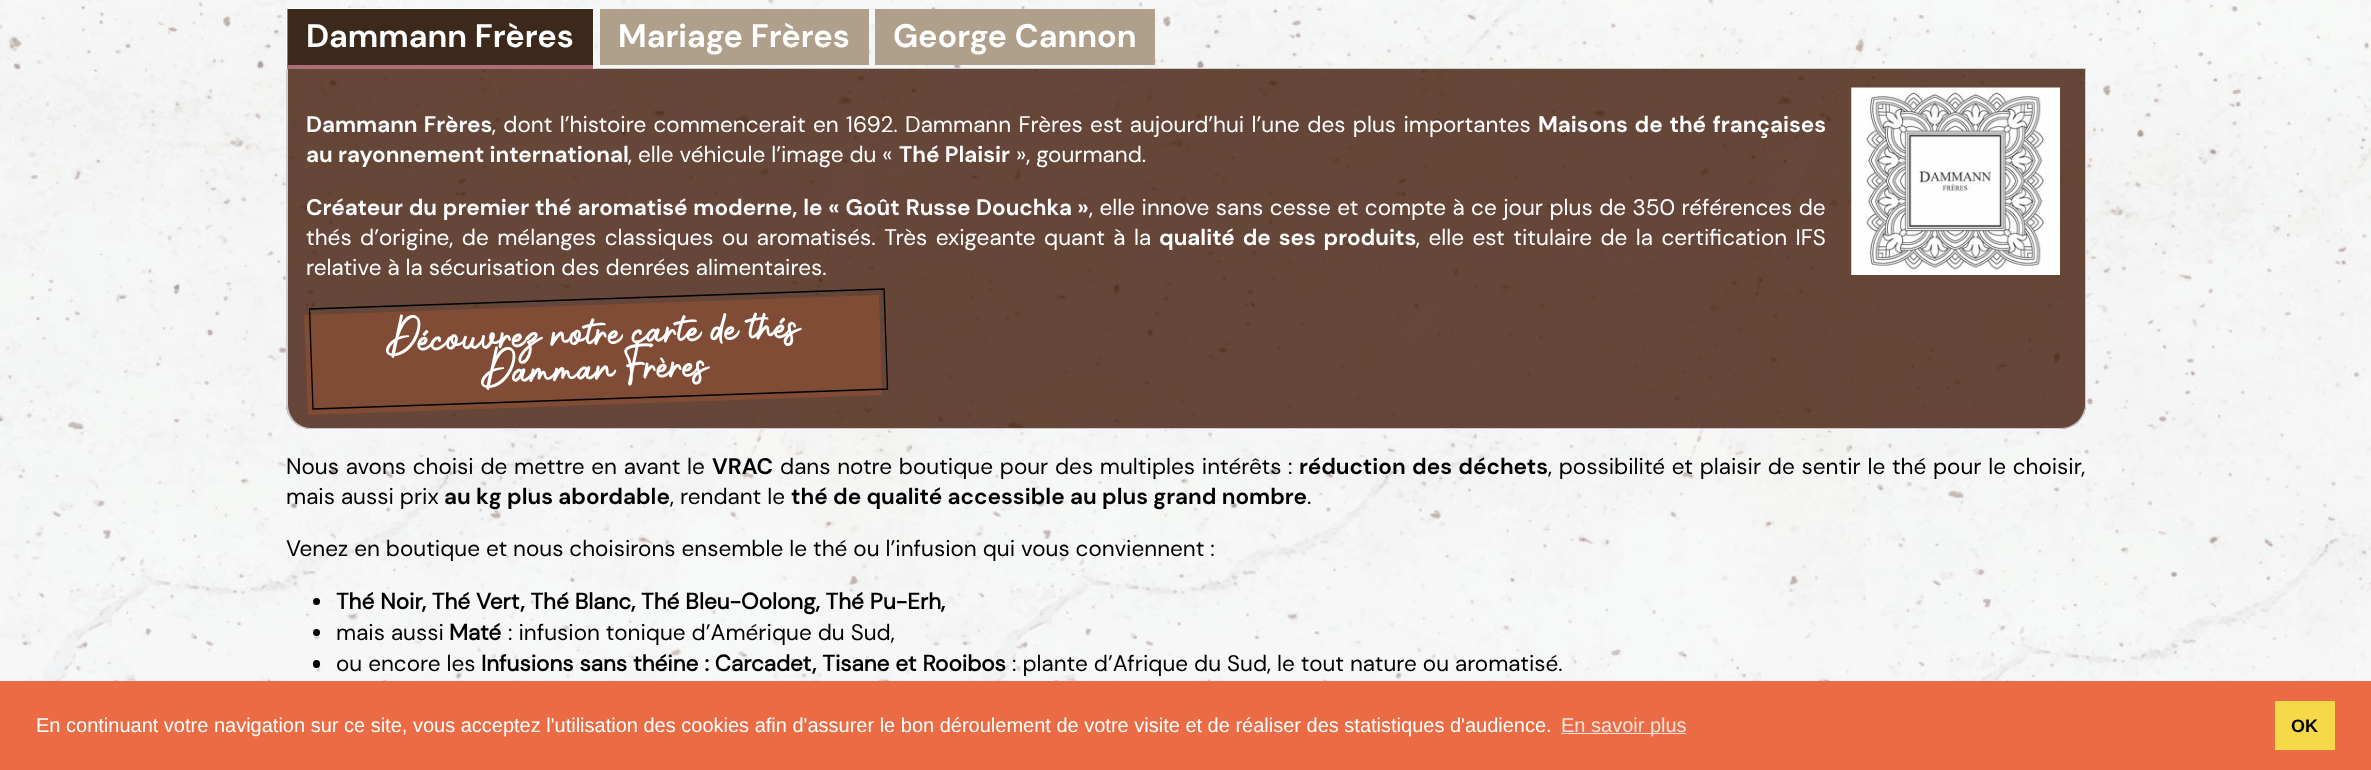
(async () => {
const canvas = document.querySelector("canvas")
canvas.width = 2371
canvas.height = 770
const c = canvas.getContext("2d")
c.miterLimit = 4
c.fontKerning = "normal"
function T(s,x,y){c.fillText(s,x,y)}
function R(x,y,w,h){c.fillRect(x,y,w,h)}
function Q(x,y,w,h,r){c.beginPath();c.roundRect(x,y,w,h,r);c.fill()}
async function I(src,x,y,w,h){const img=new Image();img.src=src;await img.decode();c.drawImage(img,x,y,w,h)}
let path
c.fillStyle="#fff"
R(0,0,2371,770)
await I("1.png",0,0,2371,681)
c.fillStyle="#ccc"
R(594,68,1492,1)
c.fillStyle="#aa6f74"
R(287,9,306,60)
c.fillStyle="#fff"
R(286,8,308,1)
R(593,8,1,61)
R(286,8,1,61)
c.fillStyle="#3c291b"
R(288,9,305,56)
c.font="bold 32.5px DM Sans"
c.fillStyle="#fff"
T("Dammann Frères",306,47)
c.fillStyle="#b09f8b"
R(600,9,269,56)
c.fillStyle="#fff"
T("Mariage Frères",618,47)
c.fillStyle="#b09f8b"
R(875,9,280,56)
c.fillStyle="#fff"
T("George Cannon",893,47)
c.fillStyle="#3c1503c7"
c.beginPath()
c.roundRect(286,69,1800,360,[0,0,25,25])
c.fill()
c.fillStyle="#ccc"
path = new Path2D("M286 69h1800v335c0 14-11 25-25 25h-1750c-14 0-25-11-25-25zm2 0h1797v335c0 13-11 24-24 24h-1750c-13 0-23-11-23-24z")
c.fill(path,"evenodd")
c.wordSpacing="1px"
c.font="bold 22.5px DM Sans"
c.fillStyle="#fff"
T("Dammann Frères",306,132)
c.wordSpacing="1.4px"
c.font="22.5px DM Sans"
T(", dont l’histoire commencerait en 1692. Dammann Frères est aujourd’hui l’une des plus importantes",492,132)
c.font="bold 22.5px DM Sans"
T("Maisons de thé françaises",1538,132)
c.wordSpacing="0px"
T("au rayonnement international",306,162)
c.font="22.5px DM Sans"
T(", elle véhicule l’image du «",628,162)
c.font="bold 22.5px DM Sans"
T("Thé Plaisir",899,162)
c.font="22.5px DM Sans"
T("», gourmand.",1016,162)
await I("2.png",1851,87,209,188)
c.wordSpacing="0.5px"
c.font="bold 22.5px DM Sans"
T("Créateur du premier thé aromatisé moderne, le « Goût Russe",306,215)
c.wordSpacing="0px"
T("Douchka »",976,215)
c.wordSpacing="0.5px"
c.font="22.5px DM Sans"
T(", elle innove sans cesse et compte à ce jour plus de 350 références de",1089,215)
c.wordSpacing="2.5px"
T("thés d’origine, de mélanges classiques ou aromatisés. Très exigeante quant à la",306,245)
c.font="bold 22.5px DM Sans"
T("qualité de ses produits",1159,245)
c.font="22.5px DM Sans"
T(", elle est titulaire de la certification IFS",1416,245)
c.wordSpacing="0px"
T("relative à la sécurisation des denrées alimentaires.",306,275)
c.fillStyle="#804c35"
path = new Path2D("M304 315l575-20l3 100l-574 20z")
c.fill(path)
c.font="bold 25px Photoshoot"
c.fillStyle="#fff"
c.save()
c.translate(386,351)
c.rotate(-2 * Math.PI / 180)
c.fillText("Découvrez notre carte de thés",0,0)
c.restore()
c.save()
c.translate(481,383)
c.rotate(-2 * Math.PI / 180)
c.fillText("Damman Frères",0,0)
c.restore()
path = new Path2D("M309.5 309l574.5-20l3.5 100l-574.5 20z")
c.strokeStyle="#000"
c.lineWidth=1.3
c.stroke(path)
c.wordSpacing="0.75px"
c.font="22.5px DM Sans"
c.fillStyle="#000"
T("Nous avons choisi de mettre en avant le",286,474)
c.wordSpacing="0px"
c.font="bold 22.5px DM Sans"
T("VRAC",712,474)
c.wordSpacing="0.75px"
c.font="22.5px DM Sans"
T("dans notre boutique pour des multiples intérêts :",780,474)
c.wordSpacing="1px"
c.font="bold 22.5px DM Sans"
T("réduction des déchets",1299,474)
c.wordSpacing="0.75px"
c.font="22.5px DM Sans"
T(", possibilité et plaisir de sentir le thé pour le choisir,",1548,474)
c.wordSpacing="0px"
T("mais aussi prix",286,504)
c.font="bold 22.5px DM Sans"
T("au kg plus abordable",444,504)
c.font="22.5px DM Sans"
T(", rendant le",670,504)
c.font="bold 22.5px DM Sans"
T("thé de qualité accessible au plus grand nombre",791,504)
c.font="22.5px DM Sans"
T(".",1307,504)
T("Venez en boutique et nous choisirons ensemble le thé ou l’infusion qui vous conviennent :",286,556)
c.beginPath()
c.arc(316.5,601.5,3.5,0,7)
c.fill()
c.font="bold 22.5px 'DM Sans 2'"
T("Thé Noir, Thé Vert, Thé Blanc, Thé Bleu-Oolong, Thé Pu-Erh,",336,609)
c.beginPath()
c.arc(316.5,632.5,3.5,0,7)
c.fill()
c.font="22.5px DM Sans"
T("mais aussi",336,640)
c.font="bold 22.5px 'DM Sans 2'"
T("Maté",449,640)
c.font="22.5px DM Sans"
T(": infusion tonique d’Amérique du Sud,",508,640)
Q(313,660,7,8,3.5)
T("ou encore les",336,671)
c.font="bold 22.5px 'DM Sans 2'"
T("Infusions sans théine : Carcadet, Tisane et Rooibos",481,671)
c.font="22.5px DM Sans"
T(": plante d’Afrique du Sud, le tout nature ou aromatisé.",1012,671)
c.fillStyle="#eb6c44"
R(0,681,2371,89)
c.font="20px Liberation Sans"
c.fillStyle="#fff"
T("En continuant votre navigation sur ce site, vous acceptez l'utilisation des cookies afin d'assurer le bon déroulement de votre visite et de réaliser des statistiques d'audience.",36,732)
c.fillStyle="#fbe2da"
R(1561,733,125,1)
T("En savoir plus",1561,732)
c.fillStyle="#f5d948"
R(2275,701,60,49)
c.font="bold 18px Liberation Sans"
c.fillStyle="#000"
T("OK",2291,732)
})()
